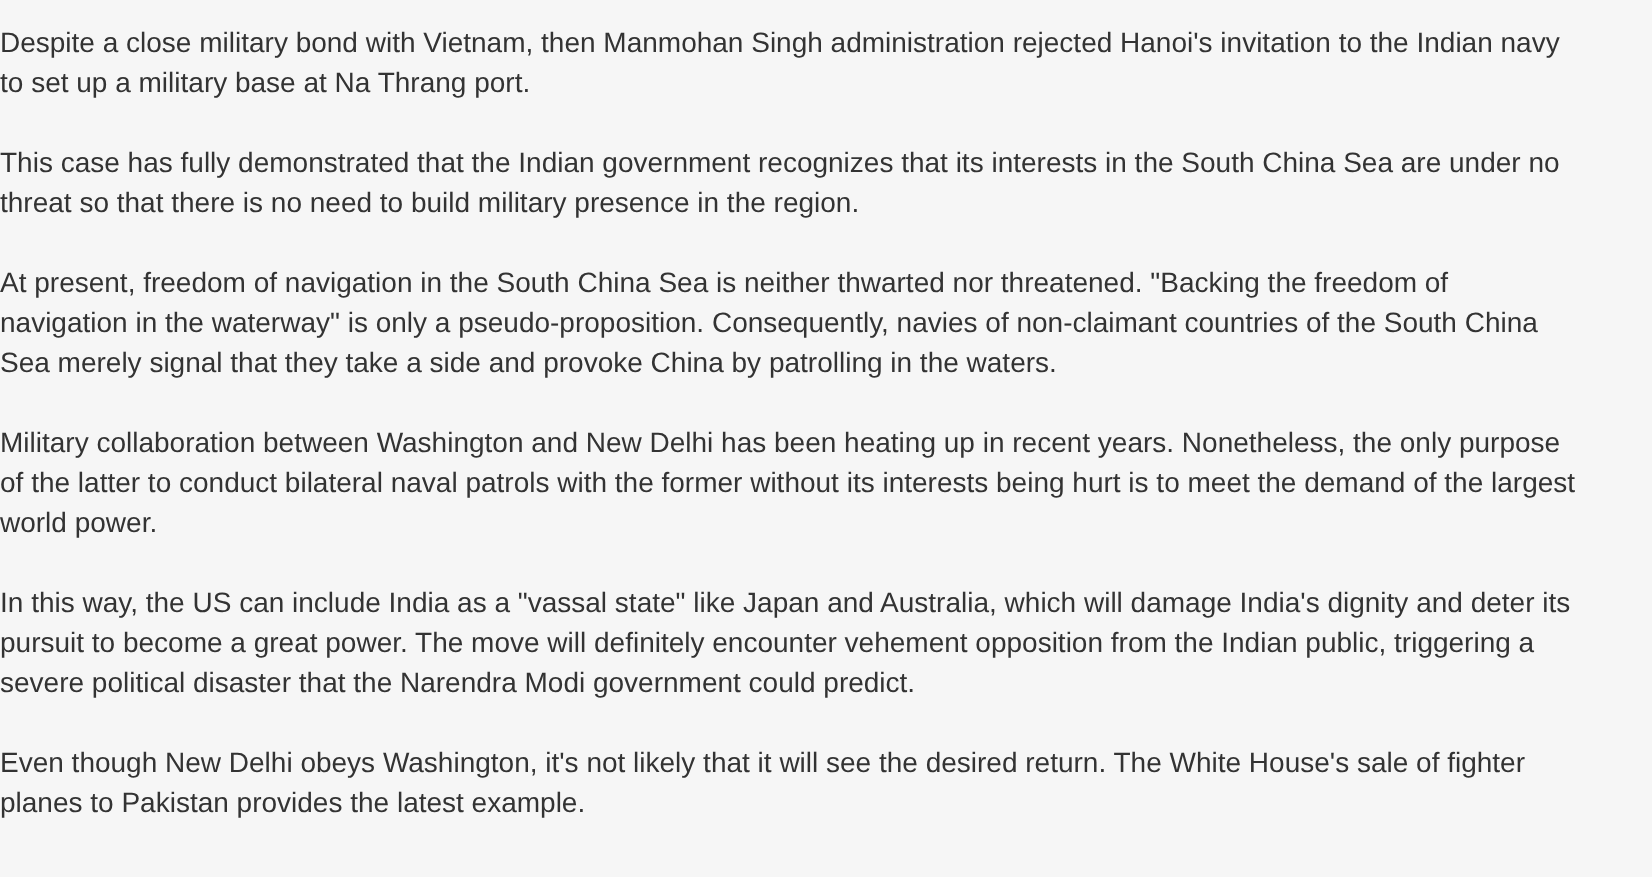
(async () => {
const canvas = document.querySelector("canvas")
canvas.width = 1652
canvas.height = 877
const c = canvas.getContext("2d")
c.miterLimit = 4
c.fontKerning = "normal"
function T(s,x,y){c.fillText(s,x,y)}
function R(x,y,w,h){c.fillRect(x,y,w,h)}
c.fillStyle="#f6f6f6"
R(0,0,1652,877)
c.font="28px Liberation Sans"
c.fillStyle="#333"
T("Despite a close military bond with Vietnam, then Manmohan Singh administration rejected Hanoi's invitation to the Indian navy",0,52)
T("to set up a military base at Na Thrang port.",0,92)
T("This case has fully demonstrated that the Indian government recognizes that its interests in the South China Sea are under no",0,172)
T("threat so that there is no need to build military presence in the region.",0,212)
T("At present, freedom of navigation in the South China Sea is neither thwarted nor threatened. \"Backing the freedom of",0,292)
T("navigation in the waterway\" is only a pseudo-proposition. Consequently, navies of non-claimant countries of the South China",0,332)
T("Sea merely signal that they take a side and provoke China by patrolling in the waters.",0,372)
T("Military collaboration between Washington and New Delhi has been heating up in recent years. Nonetheless, the only purpose",0,452)
T("of the latter to conduct bilateral naval patrols with the former without its interests being hurt is to meet the demand of the largest",0,492)
T("world power.",0,532)
T("In this way, the US can include India as a \"vassal state\" like Japan and Australia, which will damage India's dignity and deter its",0,612)
T("pursuit to become a great power. The move will definitely encounter vehement opposition from the Indian public, triggering a",0,652)
T("severe political disaster that the Narendra Modi government could predict.",0,692)
T("Even though New Delhi obeys Washington, it's not likely that it will see the desired return. The White House's sale of fighter",0,772)
T("planes to Pakistan provides the latest example.",0,812)
})()
